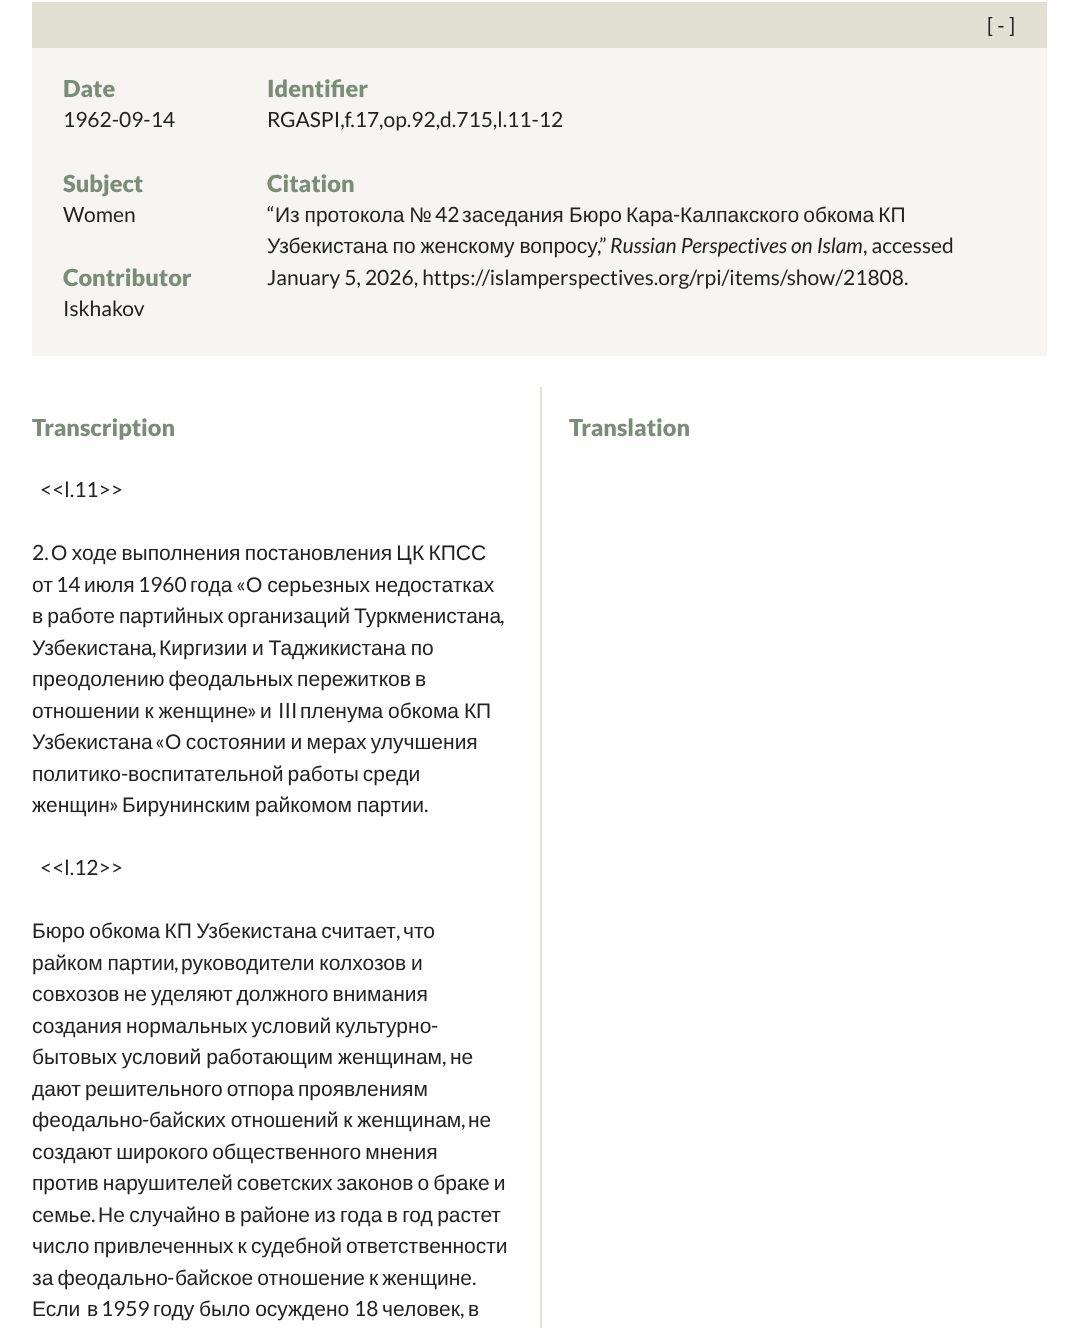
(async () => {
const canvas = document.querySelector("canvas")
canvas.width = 1078
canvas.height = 1328
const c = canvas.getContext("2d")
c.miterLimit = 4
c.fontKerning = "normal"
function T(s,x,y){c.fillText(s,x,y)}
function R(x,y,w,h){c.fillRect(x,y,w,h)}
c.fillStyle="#fff"
R(0,0,1078,1328)
c.fillStyle="#f6f5f2"
R(32,48,1015,308)
c.fillStyle="#e2dfd3"
R(32,2,1015,46)
c.font="21px Lato"
c.fillStyle="#222"
T("[ - ]",987,33)
c.font="900 23.5px Lato"
c.fillStyle="#7b8d78"
T("Date",63,97)
c.font="21px Lato"
c.fillStyle="#222"
T("1962-09-14",63,127)
c.font="900 23.5px Lato"
c.fillStyle="#7b8d78"
T("Subject",63,192)
c.font="21px Lato"
c.fillStyle="#222"
T("Women",63,222)
c.font="900 23.5px Lato"
c.fillStyle="#7b8d78"
T("Contributor",63,286)
c.font="21px Lato"
c.fillStyle="#222"
T("Iskhakov",63,316)
c.font="900 23.5px Lato"
c.fillStyle="#7b8d78"
T("Identifier",267,97)
c.font="21px Lato"
c.fillStyle="#222"
T("RGASPI,f.17,op.92,d.715,l.11-12",267,127)
c.font="900 23.5px Lato"
c.fillStyle="#7b8d78"
T("Citation",267,192)
c.font="21px Lato"
c.fillStyle="#222"
T("“",267,222)
c.wordSpacing="-1px"
c.font="21px Liberation Sans"
T("Из протокола №",275,222)
c.wordSpacing="0px"
c.font="21px Lato"
T("42",435,222)
c.font="21px Liberation Sans"
T("заседания",462,222)
c.wordSpacing="-1.75px"
T("Бюро Кара",569,222)
c.wordSpacing="0px"
c.font="21px Lato"
T("-",673,222)
c.wordSpacing="-1.75px"
c.font="21px Liberation Sans"
T("Калпакского обкома КП",680,222)
c.wordSpacing="-1px"
T("Узбекистана по женскому вопросу",267,253)
c.wordSpacing="0px"
c.font="21px Lato"
T(",”",597,253)
c.font="italic 21px Lato"
T("Russian Perspectives on Islam",610,253)
c.font="21px Lato"
T(", accessed",863,253)
T("January 5, 2026, https://islamperspectives.org/rpi/items/show/21808.",267,285)
c.font="900 23.5px Lato"
c.fillStyle="#7b8d78"
T("Transcription",32,436)
c.font="21px Lato"
c.fillStyle="#222"
T("<<l.11>>",40,497)
T("2.",32,560)
c.wordSpacing="-1.5px"
c.font="21px Liberation Sans"
T("О ходе выполнения постановления ЦК КПСС",51,560)
c.wordSpacing="0px"
T("от",32,592)
c.font="21px Lato"
T("14",56,592)
c.font="21px Liberation Sans"
T("июля",84,592)
c.font="21px Lato"
T("1960",138,592)
c.font="21px Liberation Sans"
T("года",190,592)
c.font="21px Lato"
T("«",236,592)
c.wordSpacing="-1px"
c.font="21px Liberation Sans"
T("О серьезных недостатках",246,592)
c.wordSpacing="-1.75px"
T("в работе партийных организаций Туркменистана",32,623)
c.wordSpacing="0px"
c.font="21px Lato"
T(",",500,623)
c.font="21px Liberation Sans"
T("Узбекистана",32,655)
c.font="21px Lato"
T(",",152,655)
c.wordSpacing="-1px"
c.font="21px Liberation Sans"
T("Киргизии и Таджикистана по",159,655)
c.wordSpacing="-1.75px"
T("преодолению феодальных пережитков в",32,686)
c.wordSpacing="-1px"
T("отношении к женщине",32,718)
c.wordSpacing="0px"
c.font="21px Lato"
T("»",247,718)
c.font="21px Liberation Sans"
T("и",260,718)
c.font="21px Lato"
T("III",278,718)
c.wordSpacing="-1px"
c.font="21px Liberation Sans"
T("пленума обкома КП",300,718)
c.wordSpacing="0px"
T("Узбекистана",32,749)
c.font="21px Lato"
T("«",155,749)
c.wordSpacing="-1.5px"
c.font="21px Liberation Sans"
T("О состоянии и мерах улучшения",165,749)
c.wordSpacing="0px"
T("политико",32,781)
c.font="21px Lato"
T("-",121,781)
c.wordSpacing="-1.75px"
c.font="21px Liberation Sans"
T("воспитательной работы среди",128,781)
c.wordSpacing="0px"
T("женщин",32,812)
c.font="21px Lato"
T("»",109,812)
c.wordSpacing="-1px"
c.font="21px Liberation Sans"
T("Бирунинским райкомом партии",122,812)
c.wordSpacing="0px"
c.font="21px Lato"
T(".",424,812)
T("<<l.12>>",40,875)
c.wordSpacing="-1.5px"
c.font="21px Liberation Sans"
T("Бюро обкома КП Узбекистана считает",32,938)
c.wordSpacing="0px"
c.font="21px Lato"
T(",",396,938)
c.font="21px Liberation Sans"
T("что",403,938)
c.wordSpacing="-1px"
T("райком партии",32,970)
c.wordSpacing="0px"
c.font="21px Lato"
T(",",174,970)
c.wordSpacing="-1px"
c.font="21px Liberation Sans"
T("руководители колхозов и",181,970)
c.wordSpacing="-1.75px"
T("совхозов не уделяют должного внимания",32,1001)
T("создания нормальных условий культурно",32,1033)
c.wordSpacing="0px"
c.font="21px Lato"
T("-",431,1033)
c.wordSpacing="-1px"
c.font="21px Liberation Sans"
T("бытовых условий работающим",32,1064)
c.wordSpacing="0px"
T("женщинам",338,1064)
c.font="21px Lato"
T(",",442,1064)
c.font="21px Liberation Sans"
T("не",450,1064)
c.wordSpacing="-1.75px"
T("дают решительного отпора проявлениям",32,1096)
c.wordSpacing="0px"
T("феодально",32,1127)
c.font="21px Lato"
T("-",142,1127)
c.wordSpacing="-1px"
c.font="21px Liberation Sans"
T("байских отношений к женщинам",149,1127)
c.wordSpacing="0px"
T("не",468,1127)
c.font="21px Lato"
T(",",461,1127)
c.wordSpacing="-1.75px"
c.font="21px Liberation Sans"
T("создают широкого общественного мнения",32,1159)
T("против нарушителей советских законов о браке и",32,1190)
c.wordSpacing="0px"
T("семье",32,1222)
c.font="21px Lato"
T(".",91,1222)
c.wordSpacing="-1.5px"
c.font="21px Liberation Sans"
T("Не случайно в районе из года в год растет",98,1222)
c.wordSpacing="-1.75px"
T("число привлеченных к судебной ответственности",32,1253)
T("за феодально",32,1285)
c.wordSpacing="0px"
c.font="21px Lato"
T("-",167,1285)
c.wordSpacing="-1.75px"
c.font="21px Liberation Sans"
T("байское отношение к женщине",175,1285)
c.wordSpacing="0px"
c.font="21px Lato"
T(".",472,1285)
c.font="21px Liberation Sans"
T("Если",32,1316)
T("в",87,1316)
c.font="21px Lato"
T("1959",101,1316)
c.wordSpacing="-1px"
c.font="21px Liberation Sans"
T("году было осуждено",153,1316)
c.wordSpacing="0px"
c.font="21px Lato"
T("18",354,1316)
c.font="21px Liberation Sans"
T("человек",382,1316)
c.font="21px Lato"
T(",",460,1316)
c.font="21px Liberation Sans"
T("в",468,1316)
c.fillStyle="#e2dfd3"
R(540,387,2,941)
c.font="900 23.5px Lato"
c.fillStyle="#7b8d78"
T("Translation",569,436)
})()
